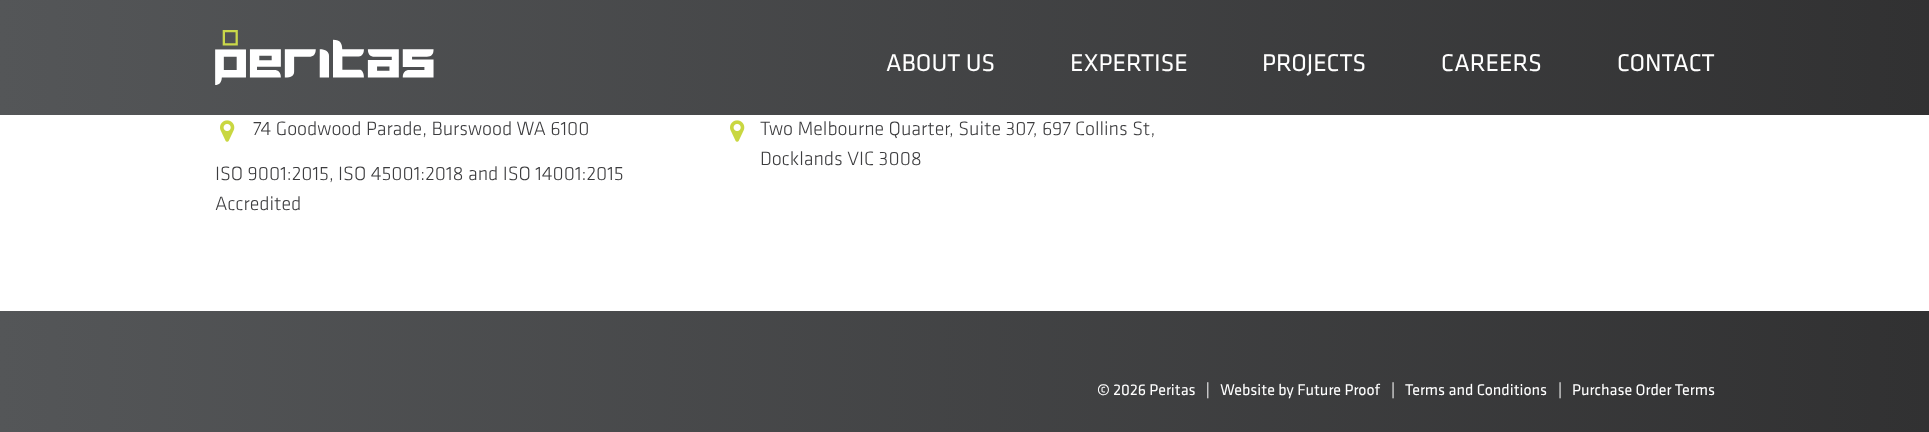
(async () => {
const canvas = document.querySelector("canvas")
canvas.width = 1929
canvas.height = 432
const c = canvas.getContext("2d")
c.miterLimit = 4
c.fontKerning = "normal"
function T(s,x,y){c.fillText(s,x,y)}
function R(x,y,w,h){c.fillRect(x,y,w,h)}
async function I(src,x,y,w,h){const img=new Image();img.src=src;await img.decode();c.drawImage(img,x,y,w,h)}
let gradient
c.fillStyle="#fff"
R(0,0,1929,432)
gradient = c.createLinearGradient(0,58,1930,57)
gradient.addColorStop(0,"#545658")
gradient.addColorStop(1,"#313132")
c.fillStyle = gradient
R(0,0,1929,115)
await I("1.png",215,30,219,55)
c.font="25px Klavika"
c.fillStyle="#fff"
T("ABOUT US",886,71)
T("EXPERTISE",1070,71)
T("PROJECTS",1262,71)
T("CAREERS",1441,71)
T("CONTACT",1617,71)
await I("2.png",220,120,15,22)
c.font="300 20px Klavika"
c.fillStyle="#3c3c3e"
T("74 Goodwood Parade, Burswood WA 6100",253,135)
T("ISO 9001:2015, ISO 45001:2018 and ISO 14001:2015",215,180)
T("Accredited",215,210)
await I("2.png",730,120,15,22)
T("Two Melbourne Quarter, Suite 307, 697 Collins St,",760,135)
T("Docklands VIC 3008",760,165)
gradient = c.createLinearGradient(0,372,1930,372)
gradient.addColorStop(0,"#545658")
gradient.addColorStop(1,"#313132")
c.fillStyle = gradient
R(0,311,1929,121)
c.font="16px Klavika"
c.fillStyle="#fff"
T("© 2026 Peritas   |   Website by Future Proof",1097,395)
T("|",1391,395)
T("Terms and Conditions",1405,395)
T("|",1558,395)
T("Purchase Order Terms",1572,395)
})()
